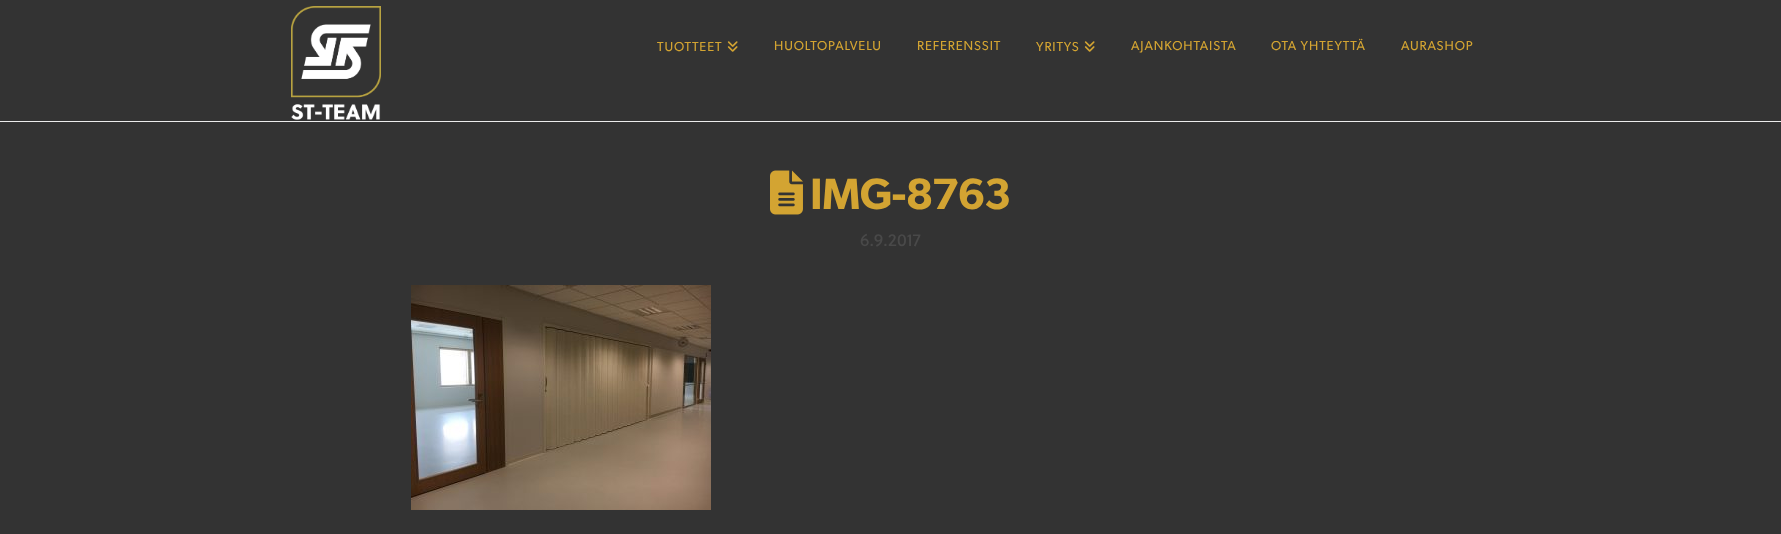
(async () => {
const canvas = document.querySelector("canvas")
canvas.width = 1781
canvas.height = 534
const c = canvas.getContext("2d")
c.miterLimit = 4
c.fontKerning = "normal"
function T(s,x,y){c.fillText(s,x,y)}
function R(x,y,w,h){c.fillRect(x,y,w,h)}
async function I(src,x,y,w,h){const img=new Image();img.src=src;await img.decode();c.drawImage(img,x,y,w,h)}
c.fillStyle="#333"
R(0,0,1781,534)
c.fillStyle="#ececec"
R(0,121,1781,1)
await I("1.png",291,6,90,114)
c.letterSpacing="0.9px"
c.font="13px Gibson"
c.fillStyle="#d3a432"
T("TUOTTEET",657,51)
await I("2.png",727,41,11,11)
T("HUOLTOPALVELU",774,50)
T("REFERENSSIT",917,50)
T("YRITYS",1036,51)
await I("2.png",1084,41,11,11)
T("AJANKOHTAISTA",1131,50)
T("OTA YHTEYTTÄ",1271,50)
T("AURASHOP",1401,50)
await I("3.png",770,170,33,45)
c.letterSpacing="-0.75px"
c.font="600 44px Gibson"
T("IMG-8763",810,209)
c.letterSpacing="0px"
c.font="17.5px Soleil"
c.fillStyle="#494949"
T("6.9.2017",860,246)
await I("4.png",411,285,300,225)
})()
